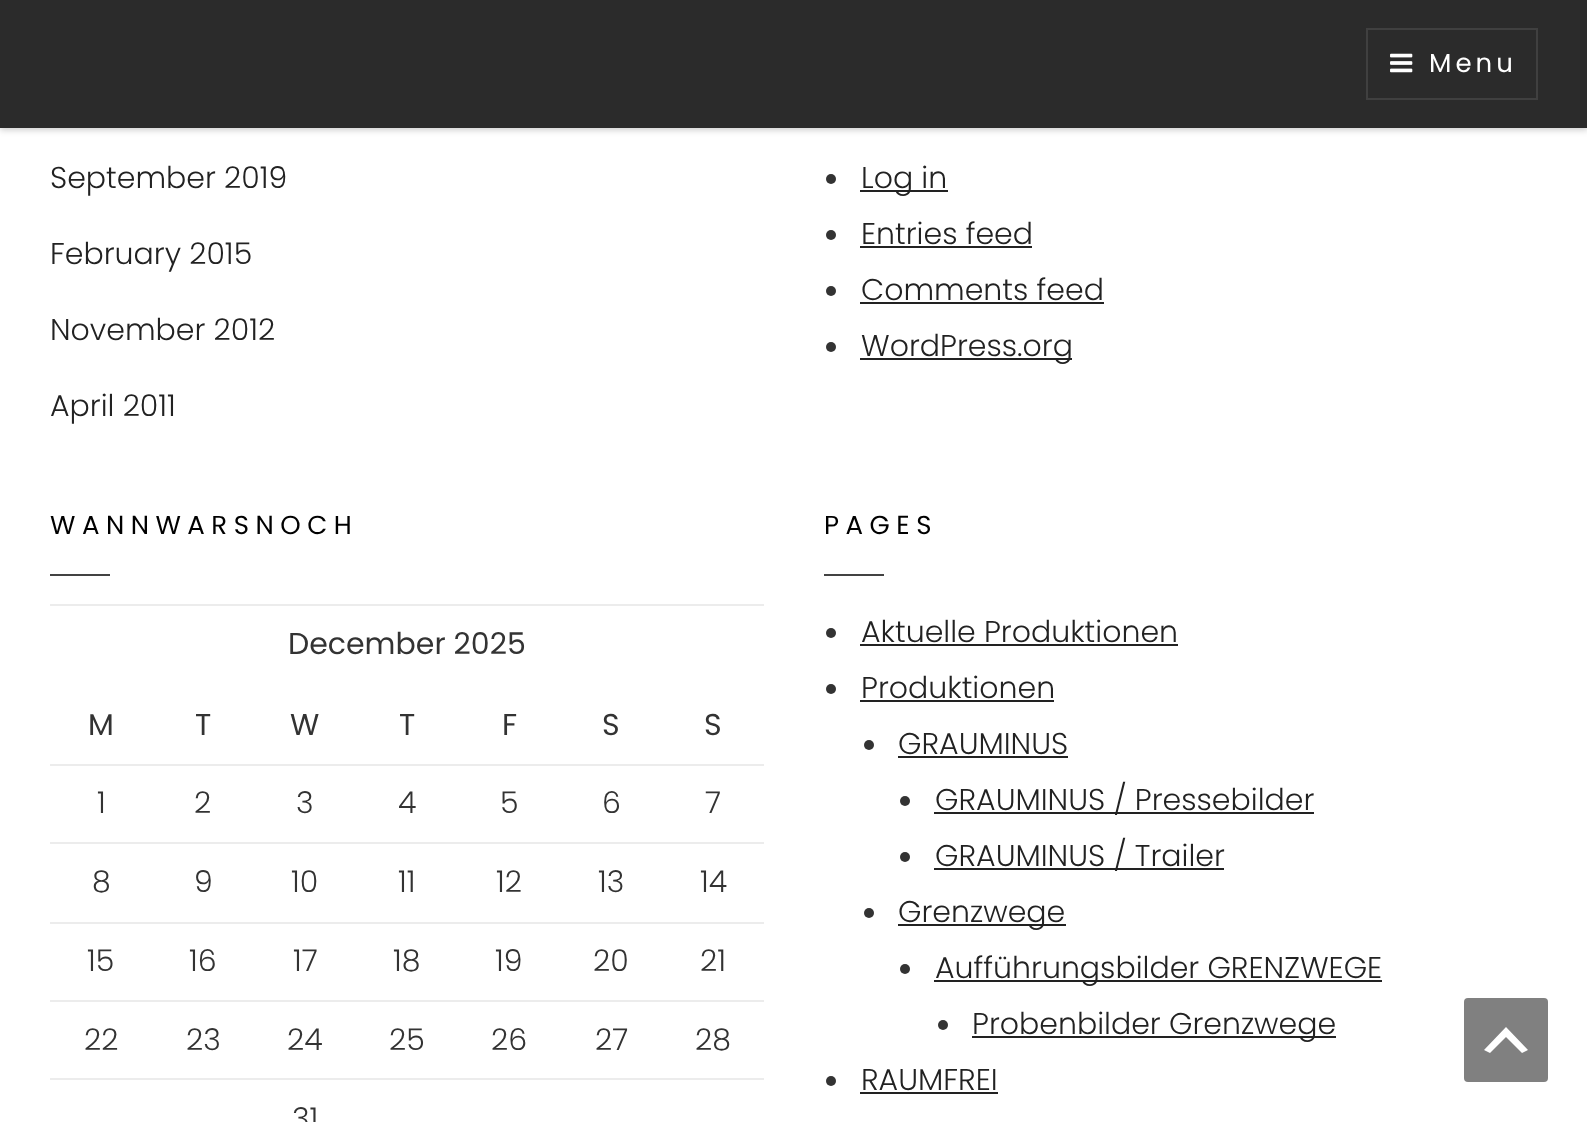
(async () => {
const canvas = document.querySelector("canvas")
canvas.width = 1587
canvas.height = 1122
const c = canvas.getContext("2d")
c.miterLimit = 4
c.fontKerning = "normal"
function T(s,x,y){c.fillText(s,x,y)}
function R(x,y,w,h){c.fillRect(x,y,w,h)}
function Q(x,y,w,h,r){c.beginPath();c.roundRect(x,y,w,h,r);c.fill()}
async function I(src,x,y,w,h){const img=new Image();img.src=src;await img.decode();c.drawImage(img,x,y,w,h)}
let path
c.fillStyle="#fff"
R(0,0,1587,1122)
c.fillStyle="#00000033"
c.filter="blur(3px)"
c.beginPath()
c.rect(0,2,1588,128)
c.fill()
c.filter="none"
c.fillStyle="#2b2b2b"
R(0,0,1587,128)
c.strokeStyle="#404040"
c.lineWidth=2
c.strokeRect(1367,29,170,70)
await I("1.png",1390,53,23,20)
c.letterSpacing="4px"
c.font="26px Poppins"
c.fillStyle="#fff"
T("Menu",1429,72)
c.letterSpacing="0px"
c.font="300 30px Poppins"
c.fillStyle="#222"
T("September 2019",50,188)
T("February 2015",50,264)
T("November 2012",50,340)
T("April 2011",50,416)
c.fillStyle="#333"
c.beginPath()
c.arc(831,179,5,0,7)
c.fill()
c.fillStyle="#222"
R(860,190,88,2)
T("Log in",861,188)
c.fillStyle="#333"
c.beginPath()
c.arc(831,235,5,0,7)
c.fill()
c.fillStyle="#222"
T("Entries feed",861,244)
R(860,246,172,2)
c.fillStyle="#333"
c.beginPath()
c.arc(831,291,5,0,7)
c.fill()
c.fillStyle="#222"
T("Comments feed",861,300)
R(860,302,244,2)
c.fillStyle="#333"
c.beginPath()
c.arc(831,347,5,0,7)
c.fill()
c.fillStyle="#222"
R(860,358,212,2)
T("WordPress.org",861,356)
c.letterSpacing="6.5px"
c.font="26px Poppins"
c.fillStyle="#000"
T("WANNWARSNOCH",50,534)
c.fillStyle="#434343"
R(50,574,60,2)
c.fillStyle="#ececec"
R(50,604,714,2)
c.letterSpacing="0px"
c.font="30px Poppins"
c.fillStyle="#333"
T("December 2025",288,654)
c.fillStyle="#ececec"
R(50,764,714,2)
c.fillStyle="#333"
T("M",88,735)
T("T",195,735)
T("W",290,735)
T("T",399,735)
T("F",502,735)
T("S",602,735)
T("S",704,735)
c.fillStyle="#ececec"
R(50,842,714,2)
c.font="300 30px Poppins"
c.fillStyle="#333"
T("1",97,813)
T("2",194,813)
T("3",296,813)
T("4",398,813)
T("5",500,813)
T("6",602,813)
T("7",705,813)
c.fillStyle="#ececec"
R(50,922,714,2)
c.fillStyle="#333"
T("8",92,892)
T("9",194,892)
T("10",291,892)
T("11",398,892)
T("12",496,892)
T("13",598,892)
T("14",700,892)
c.fillStyle="#ececec"
R(50,1000,714,2)
c.fillStyle="#333"
T("15",87,971)
T("16",189,971)
T("17",293,971)
T("18",393,971)
T("19",495,971)
T("20",593,971)
T("21",700,971)
c.fillStyle="#ececec"
R(50,1078,714,2)
c.fillStyle="#333"
T("22",84,1050)
T("23",186,1050)
T("24",287,1050)
T("25",389,1050)
T("26",491,1050)
T("27",595,1050)
T("28",695,1050)
T("31",292,1129)
c.letterSpacing="6.5px"
c.font="26px Poppins"
c.fillStyle="#000"
T("PAGES",824,534)
c.fillStyle="#434343"
R(824,574,60,2)
c.fillStyle="#333"
c.beginPath()
c.arc(831,633,5,0,7)
c.fill()
c.letterSpacing="0px"
c.font="300 30px Poppins"
c.fillStyle="#222"
T("Aktuelle Produktionen",861,642)
R(860,644,318,2)
c.fillStyle="#333"
c.beginPath()
c.arc(831,689,5,0,7)
c.fill()
c.fillStyle="#222"
T("Produktionen",861,698)
R(860,700,194,2)
c.fillStyle="#333"
c.beginPath()
c.arc(869,745,5,0,7)
c.fill()
c.fillStyle="#222"
T("GRAUMINUS",898,754)
R(898,756,170,2)
c.fillStyle="#333"
c.beginPath()
c.arc(905,801,5,0,7)
c.fill()
c.fillStyle="#222"
R(934,812,380,2)
T("GRAUMINUS / Pressebilder",935,810)
c.fillStyle="#333"
c.beginPath()
c.arc(905,857,5,0,7)
c.fill()
c.fillStyle="#222"
R(934,868,290,2)
T("GRAUMINUS / Trailer",935,866)
c.fillStyle="#333"
c.beginPath()
c.arc(869,913,5,0,7)
c.fill()
c.fillStyle="#222"
R(898,924,168,2)
T("Grenzwege",898,922)
c.fillStyle="#333"
c.beginPath()
c.arc(905,969,5,0,7)
c.fill()
c.fillStyle="#222"
R(934,980,448,2)
T("Aufführungsbilder GRENZWEGE",935,978)
c.fillStyle="#333"
c.beginPath()
c.arc(943,1025,5,0,7)
c.fill()
c.fillStyle="#222"
R(972,1036,364,2)
T("Probenbilder Grenzwege",972,1034)
c.fillStyle="#333"
c.beginPath()
c.arc(831,1081,5,0,7)
c.fill()
c.fillStyle="#222"
T("RAUMFREI",861,1090)
R(860,1092,138,2)
c.fillStyle="#808080"
Q(1464,998,84,84,4)
c.fillStyle="#fff"
path = new Path2D("M1522 1053l-16-16l-16 16l-6-3l22-23l22 23z")
c.fill(path)
})()
